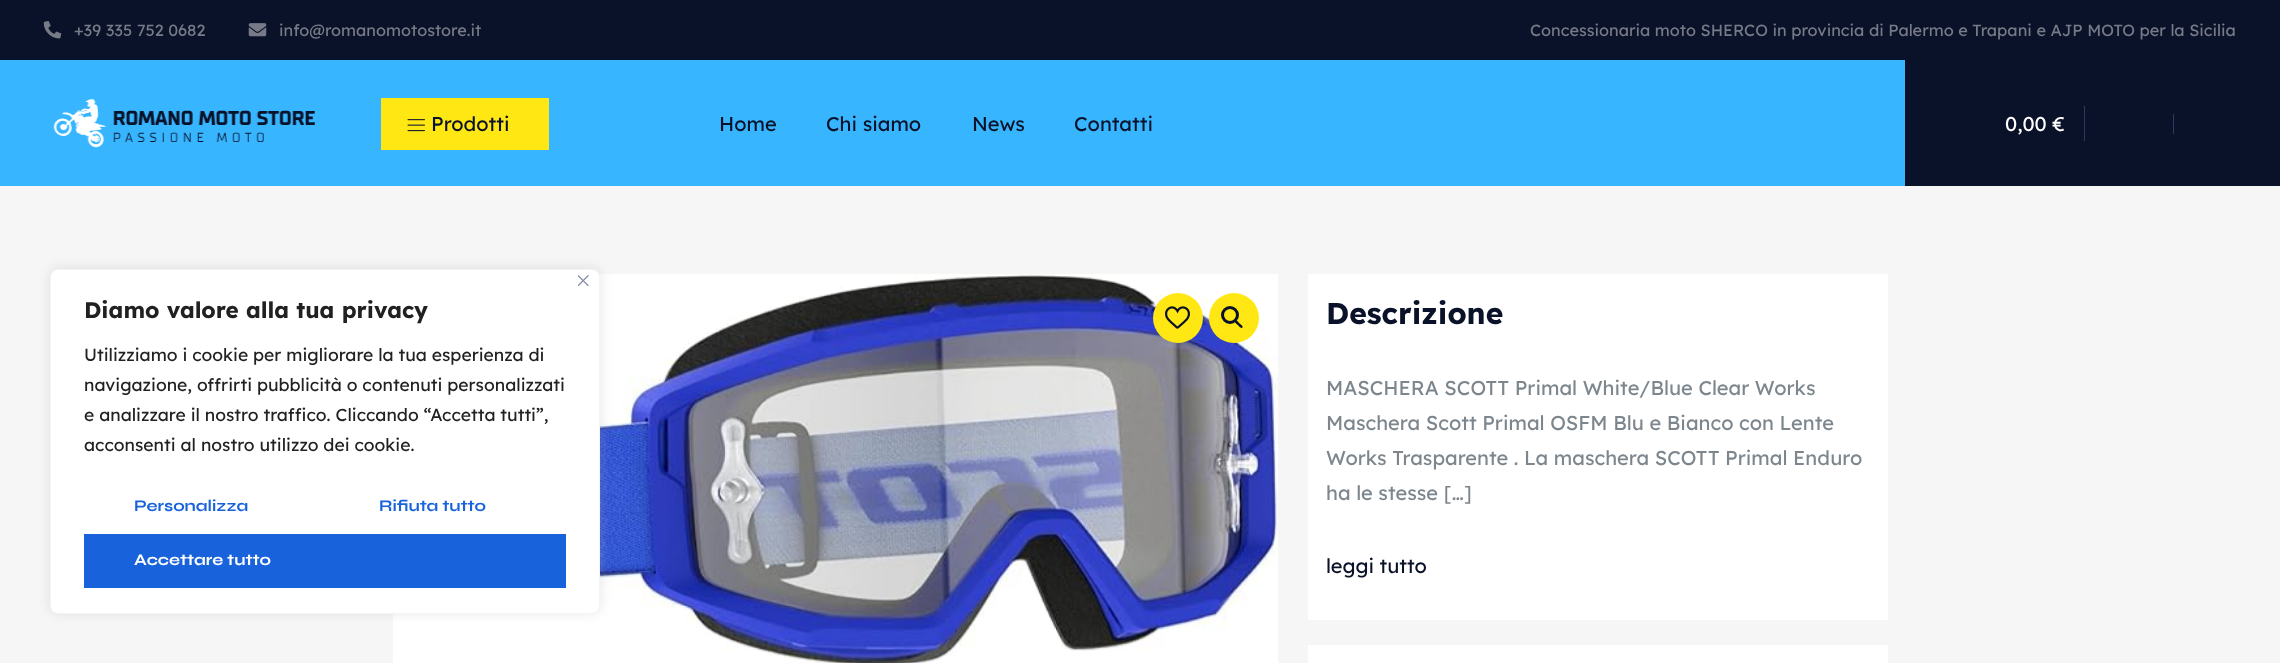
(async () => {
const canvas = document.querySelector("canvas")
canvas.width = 2280
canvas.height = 663
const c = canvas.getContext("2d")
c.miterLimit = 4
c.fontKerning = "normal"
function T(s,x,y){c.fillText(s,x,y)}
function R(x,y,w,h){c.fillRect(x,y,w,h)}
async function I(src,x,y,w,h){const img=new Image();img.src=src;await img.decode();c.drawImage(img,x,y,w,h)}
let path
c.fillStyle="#f6f6f6"
R(0,0,2280,663)
c.fillStyle="#0a122a"
R(0,0,2280,60)
await I("1.png",43,21,19,18)
c.font="16.25px Lexend"
c.fillStyle="#777b87"
T("+39 335 752 0682",74,36)
await I("2.png",248,23,19,14)
T("info@romanomotostore.it",279,36)
T("Concessionaria moto SHERCO in provincia di Palermo e Trapani e AJP MOTO per la Sicilia",1530,36)
c.fillStyle="#37b6ff"
R(0,60,1905,126)
await I("3.png",53,99,262,49)
c.fillStyle="#ffe713"
R(381,98,168,52)
await I("4.png",407,119,18,13)
c.font="20px Lexend"
c.fillStyle="#0a122a"
T("Prodotti",431,131)
T("Home",719,131)
T("Chi siamo",826,131)
T("News",972,131)
T("Contatti",1074,131)
R(1905,60,375,126)
c.fillStyle="#2d395f"
R(2084,106,1,35)
c.fillStyle="#fff"
T("0,00 €",2005,131)
c.fillStyle="#2d395f"
R(2173,114,1,20)
await I("5.png",393,274,885,389)
c.fillStyle="#ffe713"
c.beginPath()
c.arc(1178,318,25,0,7)
c.fill()
await I("6.png",1165,306,25,23)
c.beginPath()
c.arc(1234,318,25,0,7)
c.fill()
c.beginPath()
c.arc(1230,315,7.5,0,7)
c.strokeStyle="#0a122a"
c.lineWidth=3
c.stroke()
c.fillStyle="#0a122a"
path = new Path2D("M1235 320.5c1.5-1.5 4 2 4.5 3c1 .5 4 3 3 4c-1.5 1.5-4-1.5-4.5-2.5c-1-.5-4-3-3-4.5z")
c.fill(path)
c.fillStyle="#fff"
R(1308,274,580,346)
c.font="bold 30px Readex Pro"
c.fillStyle="#0a122a"
T("Descrizione",1326,324)
c.font="20px Lexend"
c.fillStyle="#7d868d"
T("MASCHERA SCOTT Primal White/Blue Clear Works",1326,395)
T("Maschera Scott Primal OSFM Blu e Bianco con Lente",1326,430)
T("Works Trasparente . La maschera SCOTT Primal Enduro",1326,465)
T("ha le stesse […]",1326,500)
c.fillStyle="#0a122a"
T("leggi tutto",1326,573)
c.fillStyle="#fff"
R(1308,645,580,18)
c.fillStyle="#acabab4d"
c.filter="blur(6px)"
c.beginPath()
c.roundRect(50,268,550,345,8)
c.fill()
c.filter="none"
c.fillStyle="#fff"
c.beginPath()
c.roundRect(50.5,269.5,549,344,7.5)
c.fill()
c.strokeStyle="#f4f4f4"
c.lineWidth=1
c.stroke()
await I("7.png",578,275,11,11)
c.font="bold 22.5px Lexend"
c.fillStyle="#212121"
T("Diamo valore alla tua privacy",84,318)
c.font="17.5px Lexend"
T("Utilizziamo i cookie per migliorare la tua esperienza di",84,361)
T("navigazione, offrirti pubblicità o contenuti personalizzati",84,391)
T("e analizzare il nostro traffico. Cliccando “Accetta tutti”,",84,421)
T("acconsenti al nostro utilizzo dei cookie.",84,451)
c.font="bold 16.25px Syne"
c.fillStyle="#1863dc"
T("Personalizza",134,511)
T("Rifiuta tutto",379,511)
R(84,534,482,54)
c.fillStyle="#fff"
T("Accettare tutto",134,565)
})()
